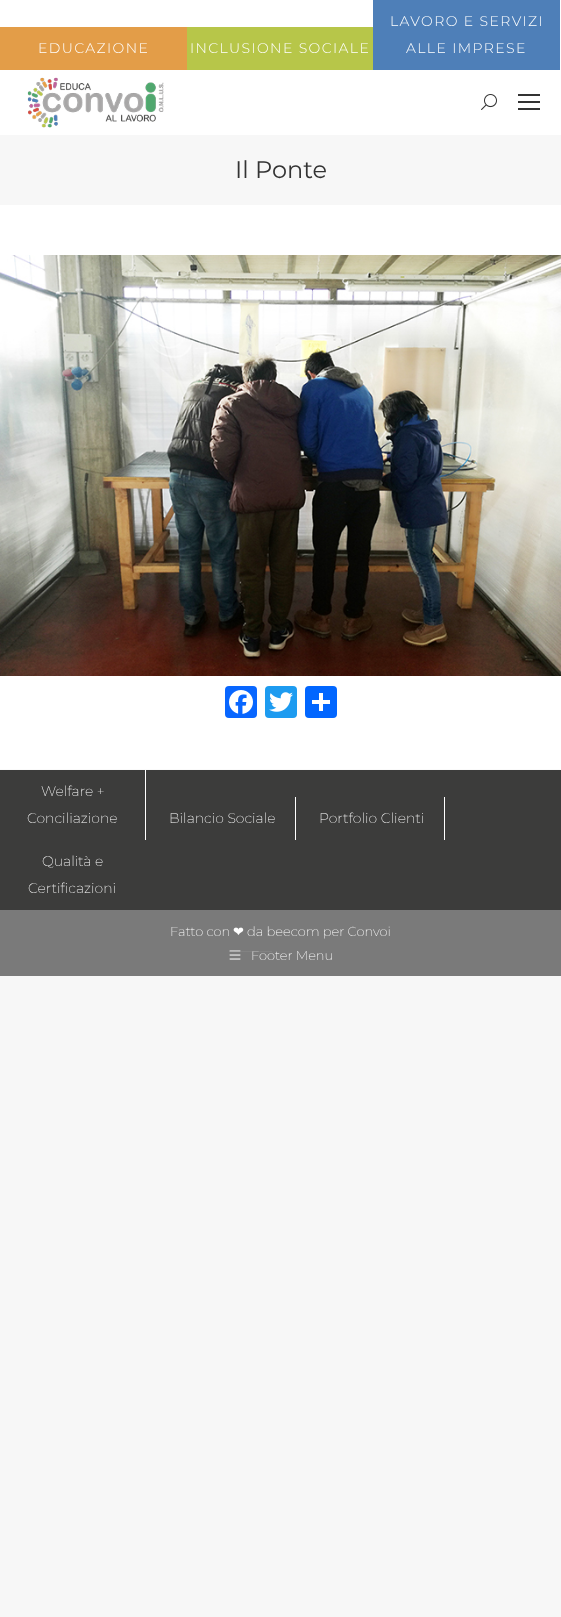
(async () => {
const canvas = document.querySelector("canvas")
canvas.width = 561
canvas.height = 1617
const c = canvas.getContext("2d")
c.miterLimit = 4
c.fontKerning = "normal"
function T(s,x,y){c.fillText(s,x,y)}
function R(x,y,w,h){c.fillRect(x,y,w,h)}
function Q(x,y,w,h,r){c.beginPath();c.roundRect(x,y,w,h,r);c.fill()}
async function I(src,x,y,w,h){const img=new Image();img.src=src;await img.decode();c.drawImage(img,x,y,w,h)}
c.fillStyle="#f7f7f7"
R(0,0,561,1617)
c.fillStyle="#fff"
R(0,0,561,769)
c.fillStyle="#e39d48"
R(0,27,187,43)
c.letterSpacing="1.4px"
c.font="300 14px Montserrat"
c.fillStyle="#fff"
T("EDUCAZIONE",38,53)
c.fillStyle="#b7c649"
R(187,27,186,43)
c.fillStyle="#fff"
T("INCLUSIONE SOCIALE",190,53)
c.fillStyle="#4e7fb8"
R(373,0,187,70)
c.fillStyle="#fff"
T("LAVORO E SERVIZI",390,26)
T("ALLE IMPRESE",406,53)
await I("1.png",27,77,137,51)
await I("2.png",481,94,16,16)
c.fillStyle="#333"
R(518,94,22,2)
R(518,101,22,2)
R(518,108,22,2)
c.fillStyle="#f7f7f7"
R(0,135,561,70)
c.letterSpacing="0px"
c.font="24px Montserrat"
c.fillStyle="#333"
T("Il Ponte",235,178)
await I("3.png",0,255,561,421)
c.fillStyle="#0866ff"
Q(225,686,32,32,4)
await I("4.png",229,690,24,24)
c.fillStyle="#1d9bf0"
Q(265,686,32,32,4)
await I("5.png",269,692,24,20)
c.fillStyle="#0166ff"
Q(305,686,32,32,4)
c.fillStyle="#fff"
R(319,693,4,18)
R(312,700,18,4)
c.fillStyle="#7a7a7a"
R(0,910,561,66)
c.fillStyle="#fafafa"
R(0,769,561,1)
c.fillStyle="#3c3c3b"
R(0,770,561,140)
c.fillStyle="#fff"
R(145,770,1,70)
c.font="200 14px Montserrat"
T("Welfare +",41,796)
T("Conciliazione",27,823)
R(295,797,1,43)
T("Bilancio Sociale",169,823)
R(444,797,1,43)
T("Portfolio Clienti",319,823)
T("Qualità e",42,866)
T("Certificazioni",28,893)
c.font="200 13px Montserrat"
T("Fatto con",170,936)
c.font="13px DejaVu Sans"
T("❤",233,936)
c.font="200 13px Montserrat"
T("da beecom per Convoi",247,936)
await I("6.png",229,950,12,10)
T("Footer Menu",251,960)
c.font="200 14px Montserrat"
c.fillStyle="#919191"
T("———",230,955)
})()
